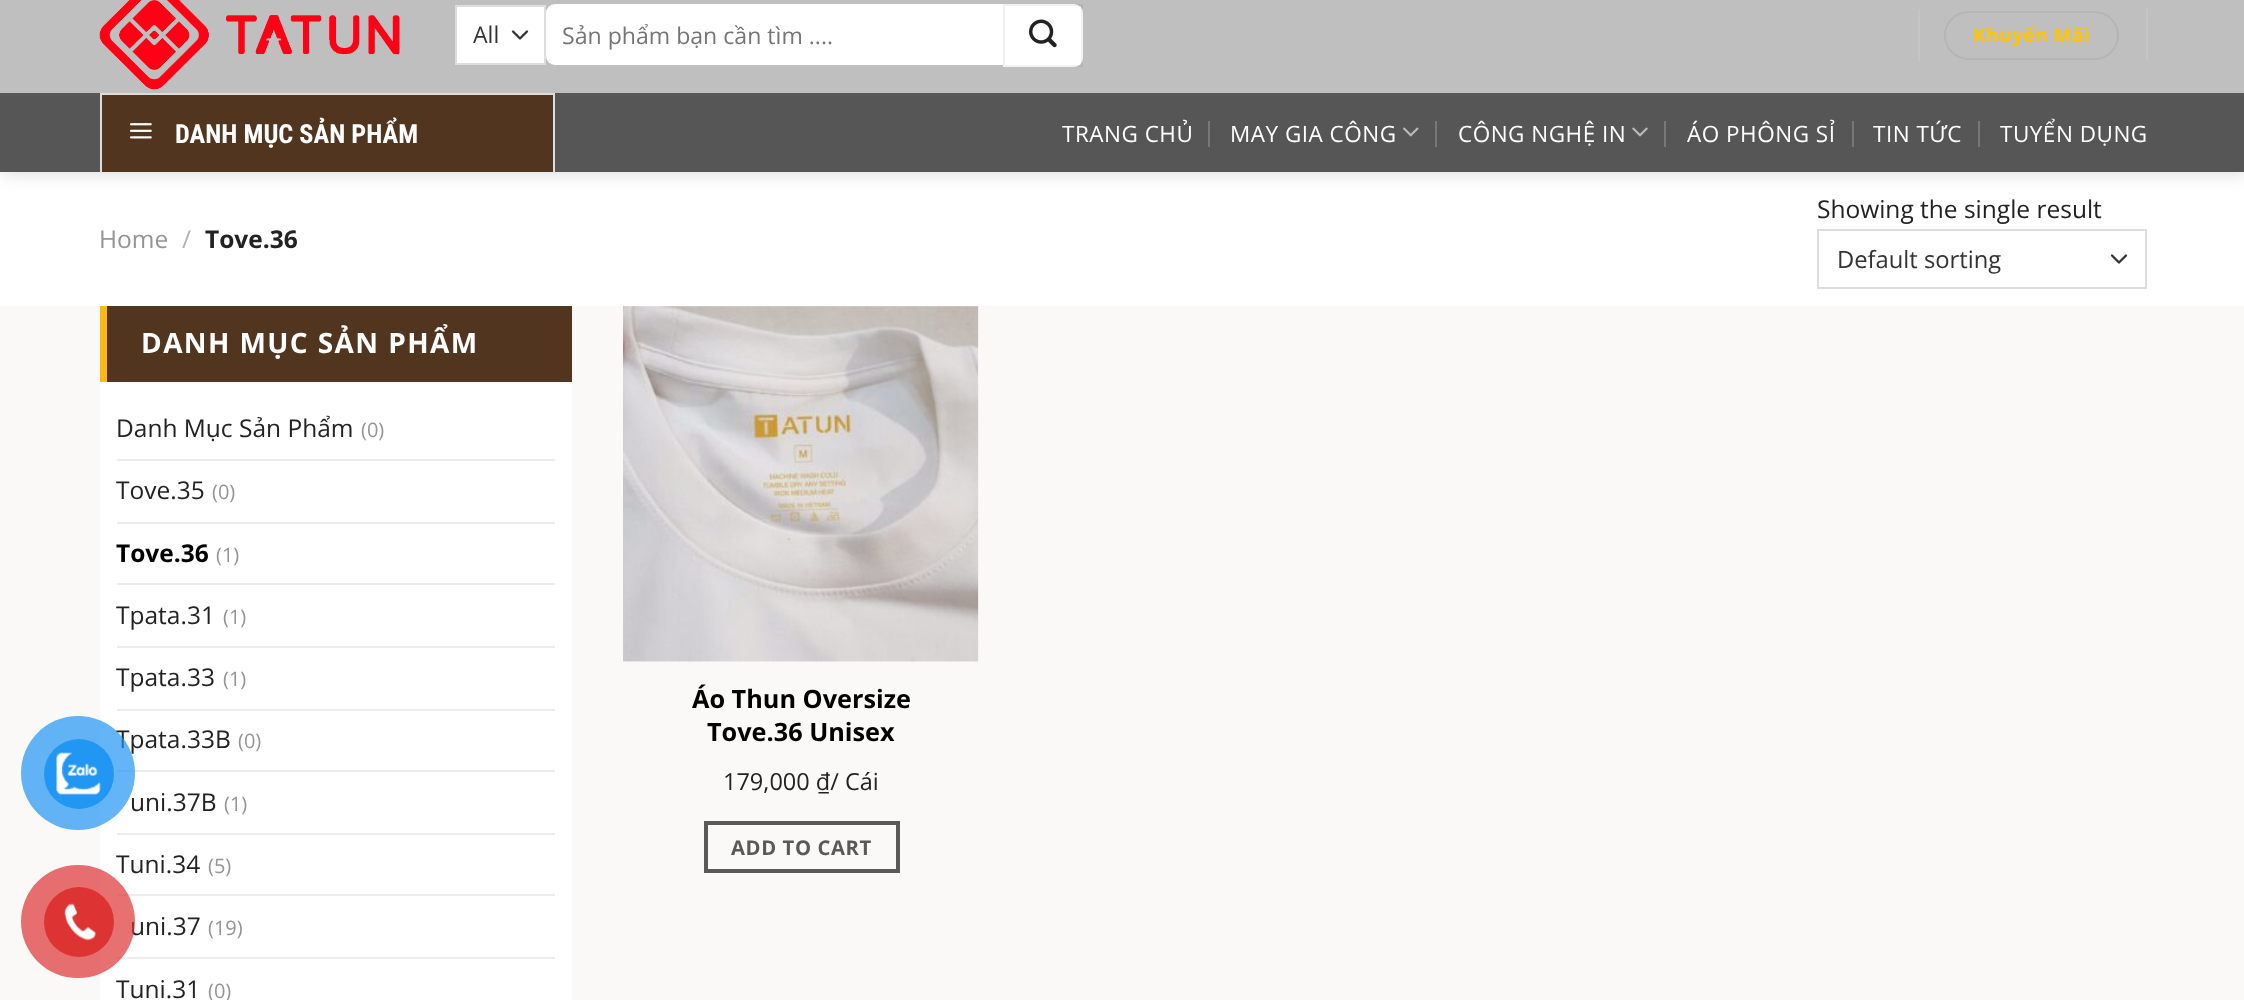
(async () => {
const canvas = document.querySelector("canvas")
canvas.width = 2244
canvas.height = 1000
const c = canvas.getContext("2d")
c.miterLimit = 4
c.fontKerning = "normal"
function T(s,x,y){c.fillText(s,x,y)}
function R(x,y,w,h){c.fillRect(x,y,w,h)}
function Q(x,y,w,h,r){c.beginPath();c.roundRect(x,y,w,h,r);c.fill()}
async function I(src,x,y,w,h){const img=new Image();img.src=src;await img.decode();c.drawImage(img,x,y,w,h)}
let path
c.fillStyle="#fff"
R(0,0,2244,1000)
c.fillStyle="#faf9f8"
R(0,306,2244,694)
c.fillStyle="#fff"
R(100,382,472,618)
c.font="24.5px Open Sans"
c.fillStyle="#222"
T("Tpata.33B",116,748)
c.fillStyle="#ececec"
R(117,770,438,2)
c.fillStyle="#222"
T("uni.37B",130,811)
c.fillStyle="#2196f3b3"
c.beginPath()
c.arc(78,773,57,0,7)
c.fill()
c.fillStyle="#2196f3"
c.beginPath()
c.arc(79,774,35,0,7)
c.fill()
await I("1.png",56,752,45,43)
c.fillStyle="#222"
T("Tuni.34",116,873)
c.fillStyle="#ececec"
R(117,894,438,2)
c.fillStyle="#222"
T("uni.37",130,935)
c.fillStyle="#ececec"
R(117,957,438,2)
c.fillStyle="#dd3333b3"
Q(21,865,114,113,56.5)
c.fillStyle="#d33"
c.beginPath()
c.arc(79,922,35,0,7)
c.fill()
await I("2.png",64,903,32,38)
c.fillStyle="#00000026"
c.filter="blur(9px)"
c.beginPath()
c.rect(2,-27,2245,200)
c.fill()
c.filter="none"
c.fillStyle="#bfbfbf"
R(0,0,2244,93)
await I("3.png",99,0,301,90)
c.fillStyle="#fff"
R(457,7,87,56)
path = new Path2D("M513 31.5l7 7l7-7")
c.strokeStyle="#333"
c.lineWidth=2.3
c.lineCap="round"
c.lineJoin="round"
c.stroke(path)
c.strokeStyle="#ddd"
c.lineWidth=2
c.lineJoin="miter"
c.strokeRect(456,6,89,58)
c.font="23.1px Open Sans"
c.fillStyle="#333"
T("All",473,43)
c.fillStyle="#fff"
c.beginPath()
c.roundRect(546,4,457,61,[9,0,0,9])
c.fill()
c.fillStyle="#757575"
T("Sản phẩm bạn cần tìm ....",562,44)
c.fillStyle="#fff"
c.beginPath()
c.roundRect(1003,4,80,63,[0,9,9,0])
c.fill()
c.strokeStyle="#0000000d"
c.strokeRect(1004,5,78,61)
await I("4.png",1029,19,28,29)
c.fillStyle="#c5c5c5"
R(1918,9,2,52)
c.beginPath()
c.roundRect(1945,12,173,47,23.5)
c.strokeStyle="#b5b5b5"
c.stroke()
c.letterSpacing="0.5px"
c.font="bold 19px Open Sans"
c.fillStyle="#ffc600"
T("Khuyến Mãi",1973,42)
c.fillStyle="#c5c5c5"
R(2146,9,2,52)
c.fillStyle="#565656"
R(0,93,2244,79)
c.fillStyle="#51351f"
R(102,95,451,77)
c.fillStyle="#ddd"
R(100,93,455,2)
R(553,93,2,79)
R(100,93,2,79)
await I("5.png",129,123,23,16)
c.letterSpacing="0px"
c.font="bold 26.25px Roboto Condensed"
c.fillStyle="#fff"
T("DANH MỤC SẢN PHẨM",175,143)
c.letterSpacing="0.5px"
c.font="22.5px Open Sans"
T("TRANG CHỦ",1062,142)
c.fillStyle="#787878"
R(1208,121,2,26)
c.fillStyle="#fff"
T("MAY GIA CÔNG",1230,142)
await I("6.png",1403,127,16,10)
c.fillStyle="#787878"
R(1435,121,2,26)
c.fillStyle="#fff"
T("CÔNG NGHỆ IN",1458,142)
await I("7.png",1632,127,16,10)
c.fillStyle="#787878"
R(1664,121,2,26)
c.fillStyle="#fff"
T("ÁO PHÔNG SỈ",1687,142)
c.fillStyle="#787878"
R(1852,121,2,26)
c.fillStyle="#fff"
T("TIN TỨC",1873,142)
c.fillStyle="#787878"
R(1978,121,2,26)
c.fillStyle="#fff"
T("TUYỂN DỤNG",2000,142)
c.letterSpacing="0px"
c.font="24.5px Open Sans"
c.fillStyle="#949494"
T("Home",99,248)
c.fillStyle="#b2b2b2"
T("/",182,248)
c.font="bold 24.5px Open Sans"
c.fillStyle="#222"
T("Tove.36",205,248)
c.font="24.5px Open Sans"
T("Showing the single result",1817,218)
path = new Path2D("M2112 255.5l7 7l7-7")
c.strokeStyle="#333"
c.lineWidth=2.3
c.lineJoin="round"
c.stroke(path)
c.strokeStyle="#ddd"
c.lineWidth=2
c.lineJoin="miter"
c.strokeRect(1818,230,328,58)
c.font="23.75px Open Sans"
c.fillStyle="#333"
T("Default sorting",1837,268)
c.fillStyle="#51351f"
R(107,306,465,76)
c.fillStyle="#fdb813"
R(100,306,7,76)
c.letterSpacing="1.4px"
c.font="bold 28px Open Sans"
c.fillStyle="#fff"
T("DANH MỤC SẢN PHẨM",141,353)
c.letterSpacing="0px"
c.font="24.5px Open Sans"
c.fillStyle="#222"
T("Danh Mục Sản Phẩm",116,437)
c.font="20px Open Sans"
c.fillStyle="#949494"
T("(0)",361,437)
c.fillStyle="#ececec"
R(117,459,438,2)
c.font="24.5px Open Sans"
c.fillStyle="#222"
T("Tove.35",116,499)
c.font="20px Open Sans"
c.fillStyle="#949494"
T("(0)",212,499)
c.fillStyle="#ececec"
R(117,522,438,2)
c.font="bold 24.5px Open Sans"
c.fillStyle="#000"
T("Tove.36",116,562)
c.font="20px Open Sans"
c.fillStyle="#949494"
T("(1)",216,562)
c.fillStyle="#ececec"
R(117,583,438,2)
c.font="24.5px Open Sans"
c.fillStyle="#222"
T("Tpata.31",116,624)
c.font="20px Open Sans"
c.fillStyle="#949494"
T("(1)",223,624)
c.fillStyle="#ececec"
R(117,646,438,2)
c.font="24.5px Open Sans"
c.fillStyle="#222"
T("Tpata.33",116,686)
c.font="20px Open Sans"
c.fillStyle="#949494"
T("(1)",223,686)
c.fillStyle="#ececec"
R(117,709,438,2)
c.fillStyle="#949494"
T("(0)",238,748)
T("(1)",224,811)
c.fillStyle="#ececec"
R(117,833,438,2)
c.fillStyle="#949494"
T("(5)",208,873)
T("(19)",208,935)
c.font="24.5px Open Sans"
c.fillStyle="#222"
T("Tuni.31",116,998)
c.font="20px Open Sans"
c.fillStyle="#949494"
T("(0)",208,998)
await I("8.png",623,306,356,356)
await I("9.png",623,306,356,356)
c.font="bold 25.25px Open Sans"
c.fillStyle="#000"
T("Áo Thun Oversize",692,708)
T("Tove.36 Unisex",707,741)
c.font="23.5px Open Sans"
c.fillStyle="#222"
T("179,000 ₫/ Cái",723,790)
c.strokeStyle="#595959"
c.lineWidth=4
c.strokeRect(706,823,192,48)
c.letterSpacing="0.6px"
c.font="bold 20.25px Open Sans"
c.fillStyle="#595959"
T("ADD TO CART",731,855)
})()
